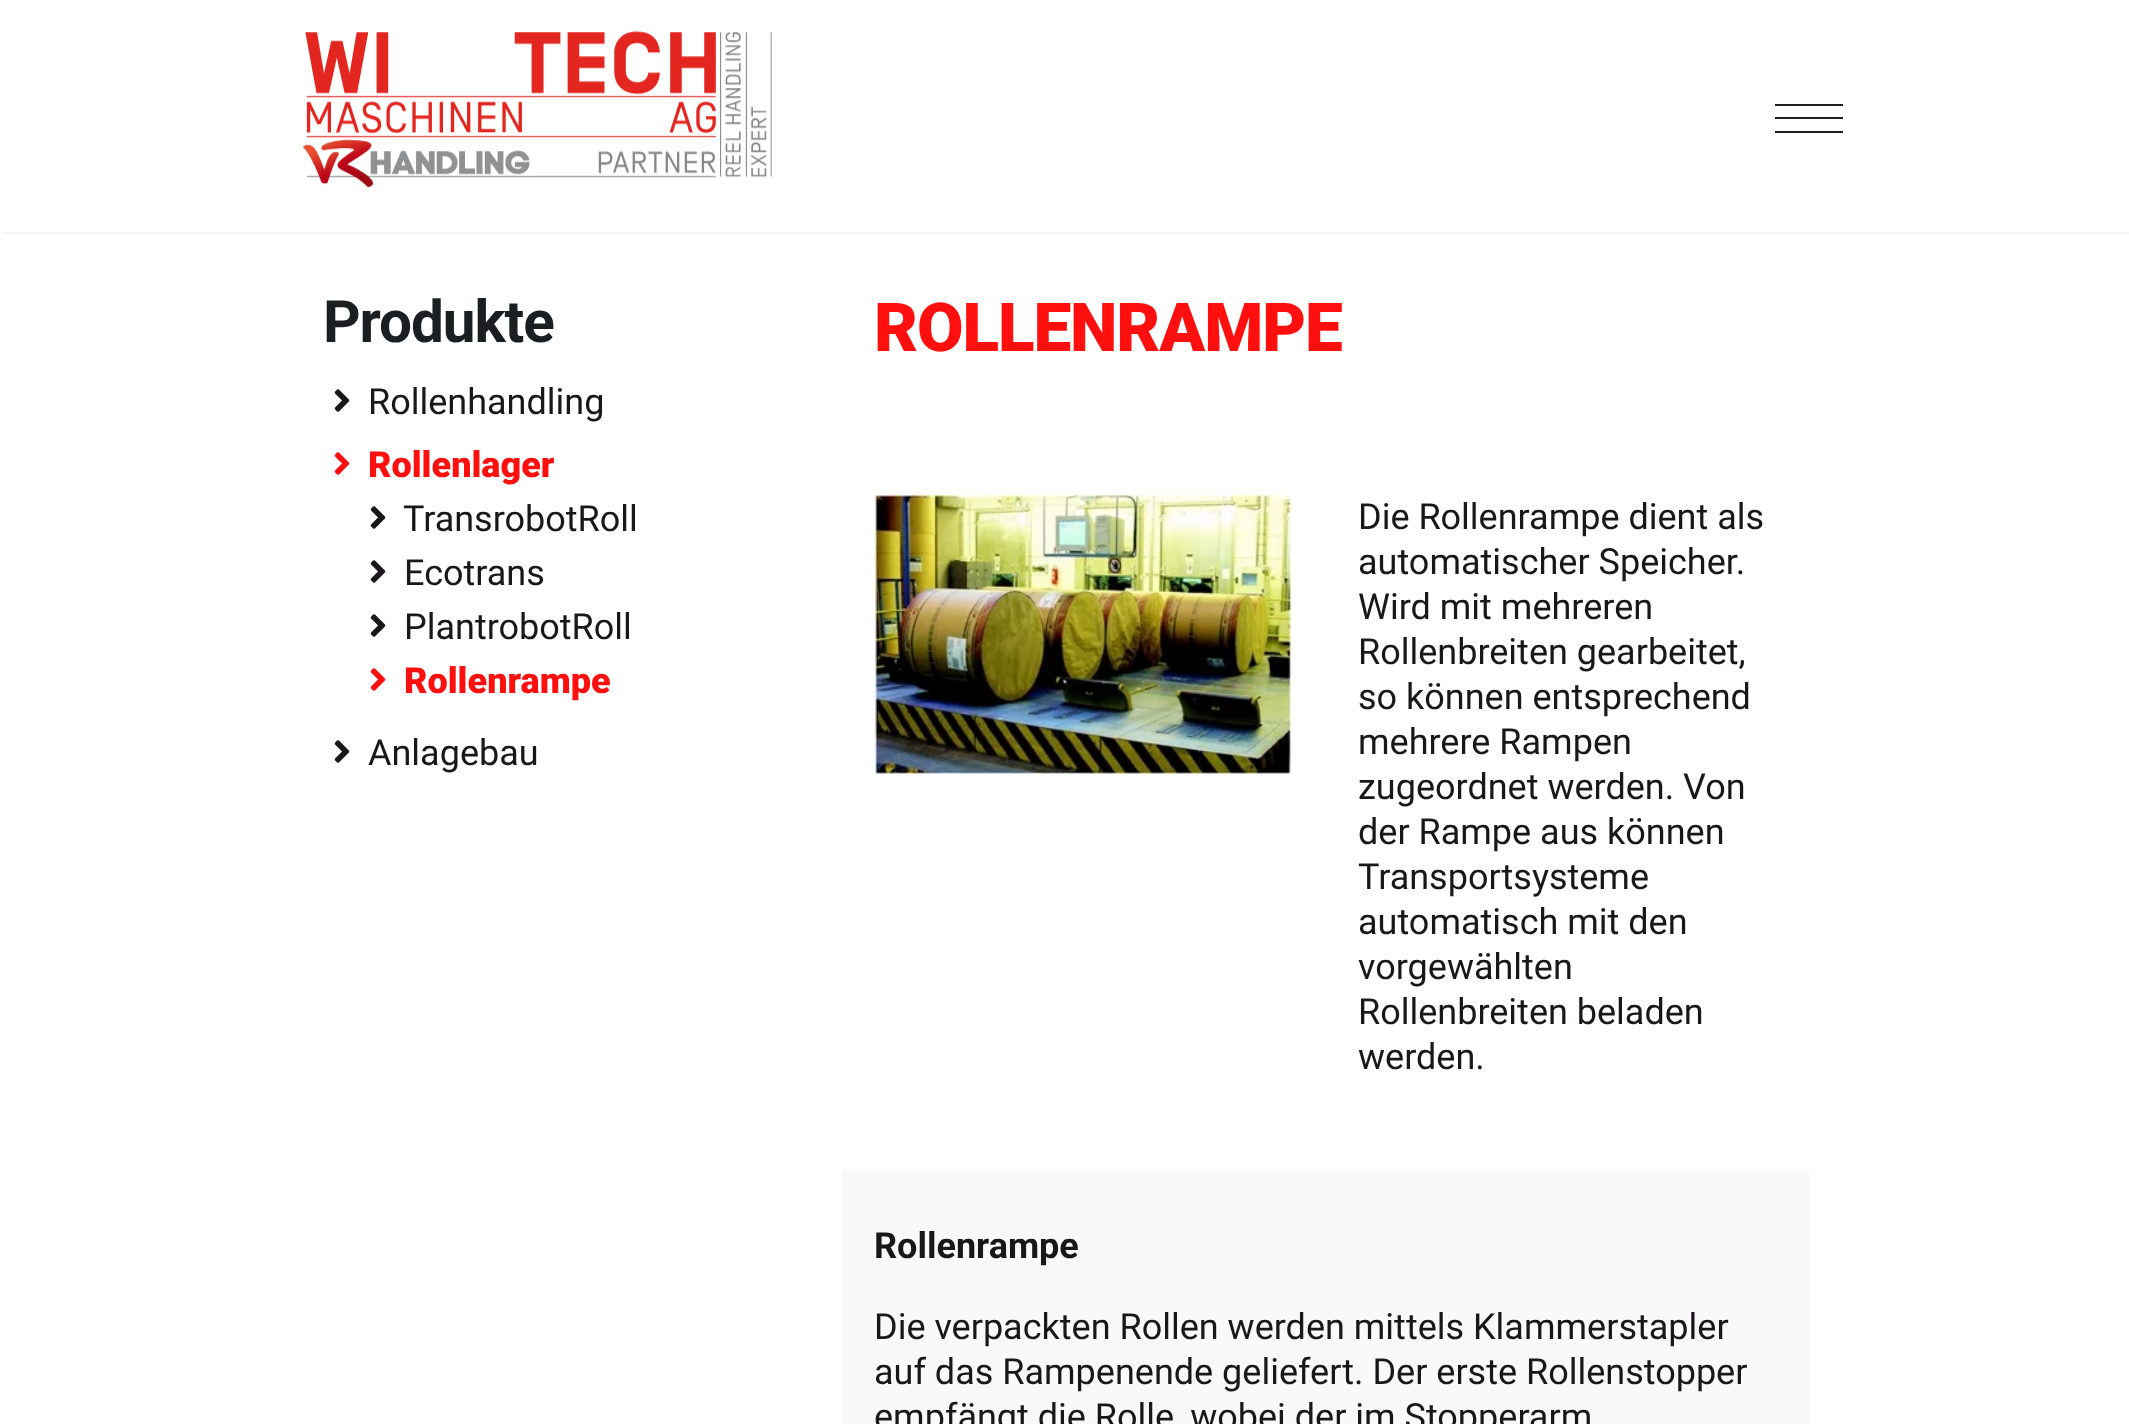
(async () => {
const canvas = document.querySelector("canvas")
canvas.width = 2129
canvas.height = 1424
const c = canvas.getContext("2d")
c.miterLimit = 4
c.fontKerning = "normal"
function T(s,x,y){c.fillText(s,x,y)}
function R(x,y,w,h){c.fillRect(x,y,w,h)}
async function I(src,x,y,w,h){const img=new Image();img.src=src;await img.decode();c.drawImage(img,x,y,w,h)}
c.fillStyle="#fff"
R(0,0,2129,1424)
await I("1.png",303,31,469,157)
c.fillStyle="#1c1f21"
R(1775,104,68,2)
R(1775,117,68,2)
R(1775,131,68,2)
c.fillStyle="#f5f5f5"
R(2,232,2127,2)
c.letterSpacing="-1.1px"
c.font="bold 58.5px Roboto"
c.fillStyle="#1c1f21"
T("Produkte",323,342)
await I("2.png",334,389,16,23)
c.letterSpacing="0px"
c.font="36px Roboto"
c.fillStyle="#1a171b"
T("Rollenhandling",368,414)
await I("3.png",334,452,16,23)
c.font="900 36px Roboto"
c.fillStyle="#ff0f0d"
T("Rollenlager",368,477)
await I("2.png",370,506,16,23)
c.font="36px Roboto"
c.fillStyle="#1a171b"
T("TransrobotRoll",403,531)
await I("2.png",370,560,16,23)
T("Ecotrans",404,585)
await I("2.png",370,614,16,23)
T("PlantrobotRoll",404,639)
await I("3.png",370,668,16,23)
c.font="900 36px Roboto"
c.fillStyle="#ff0f0d"
T("Rollenrampe",404,693)
await I("2.png",334,740,16,23)
c.font="36px Roboto"
c.fillStyle="#1a171b"
T("Anlagebau",368,765)
c.letterSpacing="-1.1px"
c.font="900 67.5px Roboto"
c.fillStyle="#ff0f0d"
T("ROLLENRAMPE",874,351)
await I("4.png",875,495,417,279)
c.letterSpacing="0px"
c.font="36px Roboto"
c.fillStyle="#1a171b"
T("Die Rollenrampe dient als",1358,529)
T("automatischer Speicher.",1358,574)
T("Wird mit mehreren",1358,619)
T("Rollenbreiten gearbeitet,",1358,664)
T("so können entsprechend",1358,709)
T("mehrere Rampen",1358,754)
T("zugeordnet werden. Von",1358,799)
T("der Rampe aus können",1358,844)
T("Transportsysteme",1358,889)
T("automatisch mit den",1358,934)
T("vorgewählten",1358,979)
T("Rollenbreiten beladen",1358,1024)
T("werden.",1358,1069)
c.fillStyle="#f9f9f9"
R(842,1170,967,254)
c.font="bold 36px Roboto"
c.fillStyle="#1a171b"
T("Rollenrampe",874,1258)
c.font="36px Roboto"
T("Die verpackten Rollen werden mittels Klammerstapler",874,1339)
T("auf das Rampenende geliefert. Der erste Rollenstopper",874,1384)
T("empfängt die Rolle, wobei der im Stopperarm",874,1429)
})()
